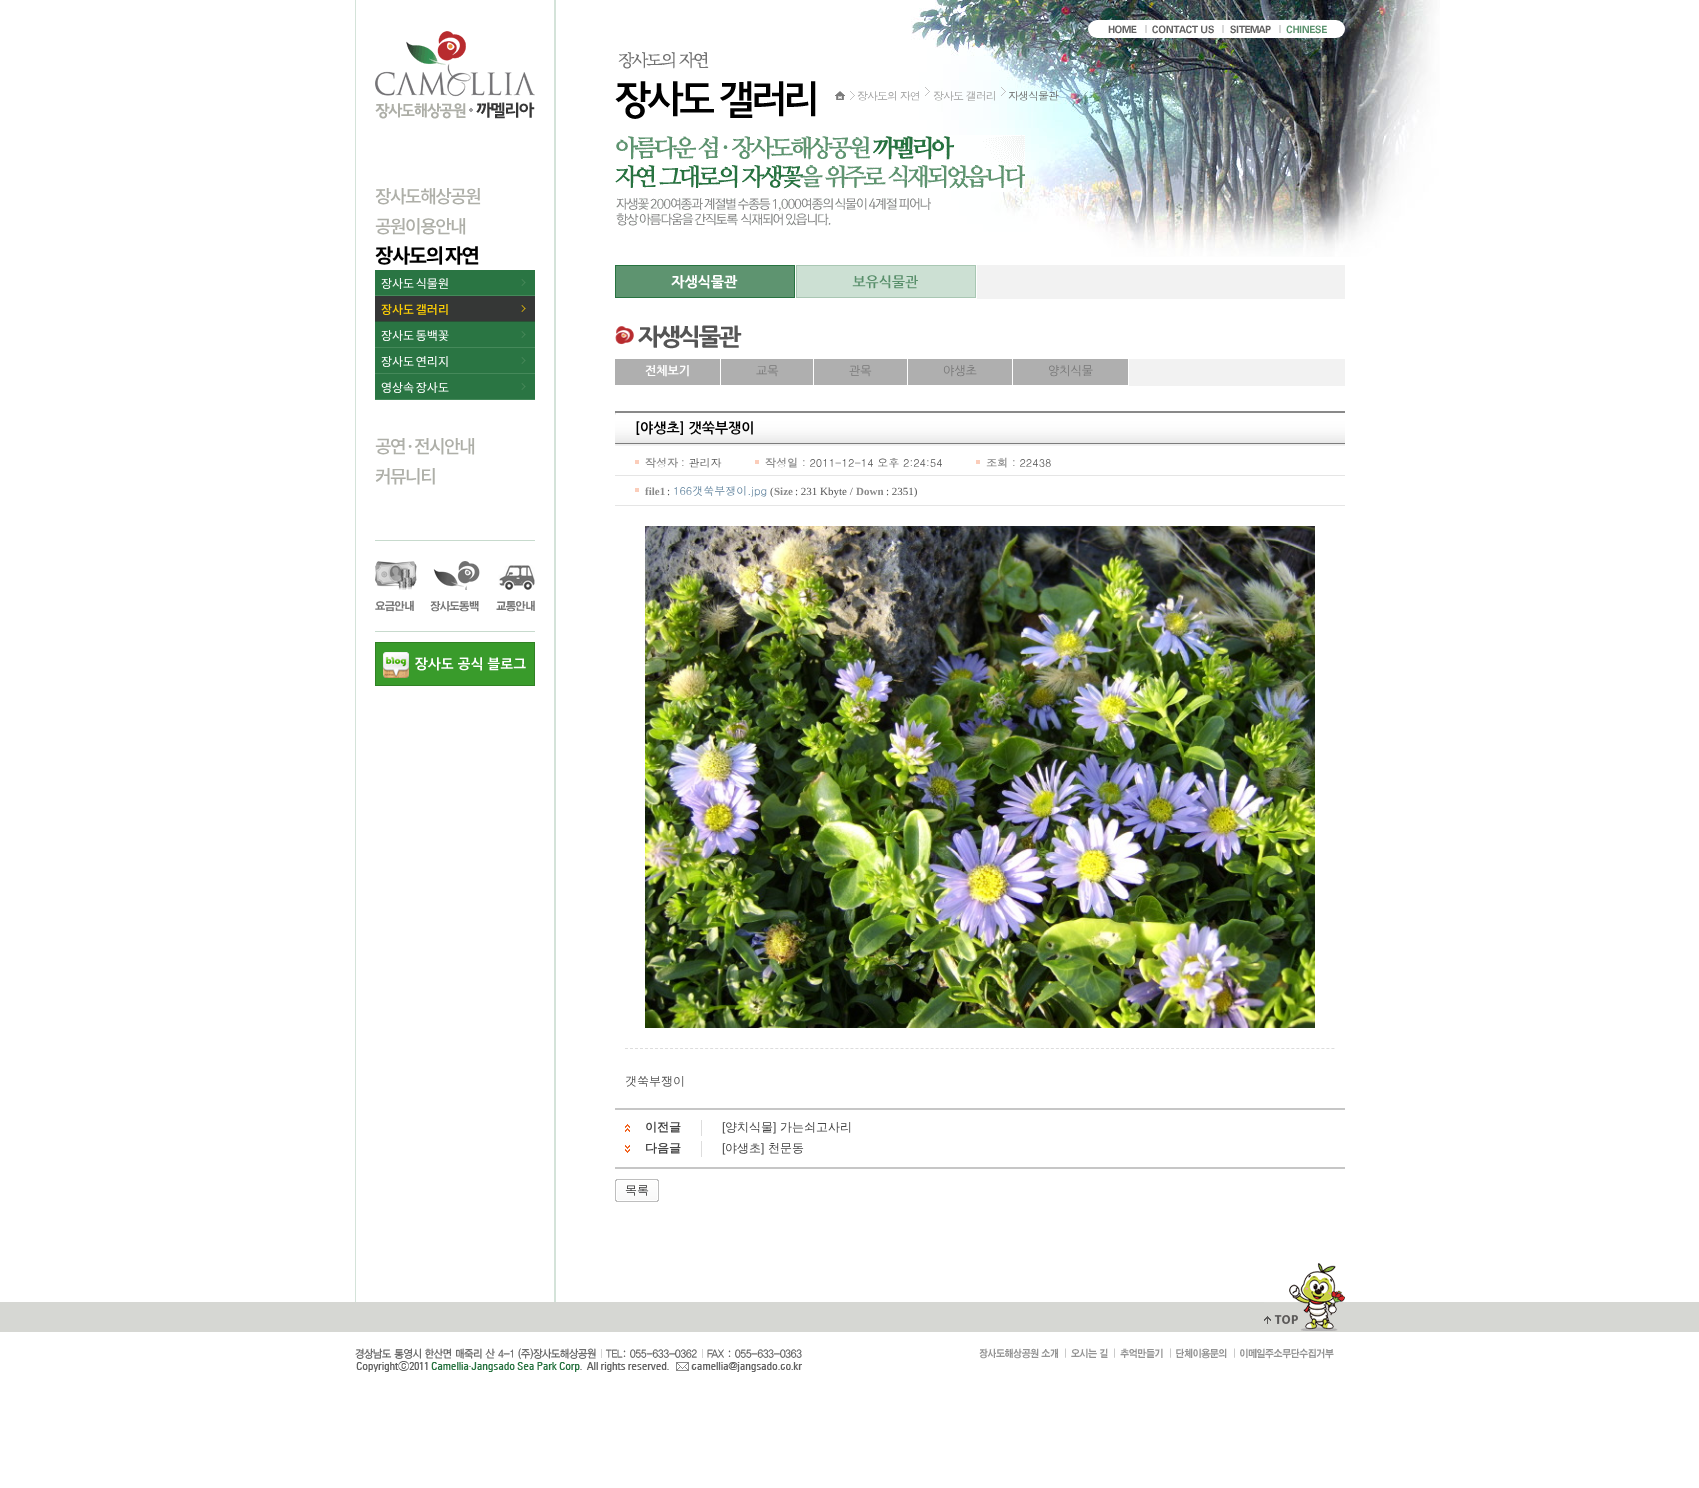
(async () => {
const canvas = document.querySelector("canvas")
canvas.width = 1699
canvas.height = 1488
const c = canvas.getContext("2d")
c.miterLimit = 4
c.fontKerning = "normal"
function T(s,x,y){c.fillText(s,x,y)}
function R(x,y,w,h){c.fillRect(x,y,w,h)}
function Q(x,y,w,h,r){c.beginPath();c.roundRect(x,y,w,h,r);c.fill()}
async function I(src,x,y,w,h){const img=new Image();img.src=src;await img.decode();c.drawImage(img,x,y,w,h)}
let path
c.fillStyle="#fff"
R(0,0,1699,1488)
await I("1.png",911,0,529,257)
await I("2.png",355,0,201,1302)
Q(1088,20,257,18,9)
await I("3.png",1108,25,29,9)
c.fillStyle="#d9d9d9"
R(1145,25,2,8)
await I("4.png",1152,25,62,9)
R(1222,25,2,8)
await I("5.png",1230,25,41,9)
R(1279,25,2,8)
await I("6.png",1286,25,41,9)
await I("7.png",375,31,160,88)
await I("8.png",618,52,91,17)
c.fillStyle="#c7dacd"
R(375,540,160,1)
R(375,631,160,1)
await I("9.png",375,561,42,51)
await I("10.png",430,561,50,51)
await I("11.png",496,565,39,47)
await I("12.png",375,642,160,44)
c.letterSpacing="-1.5px"
c.font="500 18px Noto Sans KR"
c.fillStyle="#aeafa8"
T("장사도해상공원",375,203)
T("공원이용안내",375,233)
c.wordSpacing="-1px"
c.font="bold 20px Noto Sans KR"
c.fillStyle="#000"
T("장사도의 자연",375,263)
c.fillStyle="#2a7543"
R(375,270,160,25)
c.fillStyle="#45895a"
R(375,295,160,1)
c.letterSpacing="0px"
c.font="12px Noto Sans KR"
c.fillStyle="#fff"
T("장사도 식물원",381,288)
c.fillStyle="#4e8b5f"
path = new Path2D("M521.5 279.5l.5-.5l3.5 3.5l-.5 .5z")
c.fill(path)
path = new Path2D("M521.5 285.5l3.5-3.5l.5 .5l-3.5 3.5z")
c.fill(path)
c.fillStyle="#295236"
R(375,321,160,1)
c.fillStyle="#353736"
R(375,296,160,25)
c.font="500 12px Noto Sans KR"
c.fillStyle="#fcce05"
T("장사도 갤러리",381,314)
c.fillStyle="#fcca05"
path = new Path2D("M521.5 305.5l.5-.5l3.5 3.5l-.5 .5z")
c.fill(path)
path = new Path2D("M521.5 311.5l3.5-3.5l.5 .5l-3.5 3.5z")
c.fill(path)
c.fillStyle="#2a7543"
R(375,322,160,25)
c.fillStyle="#45895a"
R(375,347,160,1)
c.font="12px Noto Sans KR"
c.fillStyle="#fff"
T("장사도 동백꽃",381,340)
c.fillStyle="#4e8b5f"
path = new Path2D("M521.5 331.5l.5-.5l3.5 3.5l-.5 .5z")
c.fill(path)
path = new Path2D("M521.5 337.5l3.5-3.5l.5 .5l-3.5 3.5z")
c.fill(path)
c.fillStyle="#2a7543"
R(375,348,160,25)
c.fillStyle="#45895a"
R(375,373,160,1)
c.fillStyle="#fff"
T("장사도 연리지",381,366)
c.fillStyle="#4e8b5f"
path = new Path2D("M521.5 357.5l.5-.5l3.5 3.5l-.5 .5z")
c.fill(path)
path = new Path2D("M521.5 363.5l3.5-3.5l.5 .5l-3.5 3.5z")
c.fill(path)
c.fillStyle="#2a7543"
R(375,374,160,25)
c.fillStyle="#45895a"
R(375,399,160,1)
c.fillStyle="#fff"
T("영상속 장사도",381,392)
c.fillStyle="#4e8b5f"
path = new Path2D("M521.5 383.5l.5-.5l3.5 3.5l-.5 .5z")
c.fill(path)
path = new Path2D("M521.5 389.5l3.5-3.5l.5 .5l-3.5 3.5z")
c.fill(path)
c.letterSpacing="-1.5px"
c.wordSpacing="0px"
c.font="500 18px Noto Sans KR"
c.fillStyle="#aeafa8"
T("공연·전시안내",375,453)
T("커뮤니티",375,483)
await I("13.png",615,81,201,38)
await I("14.png",835,91,10,9)
await I("15.png",850,91,5,9)
c.letterSpacing="-1px"
c.font="11px Dotum"
c.fillStyle="#999"
T("장사도의 자연",857,100)
await I("16.png",925,87,5,9)
T("장사도 갤러리",933,100)
await I("17.png",1001,87,5,9)
c.fillStyle="#666"
T("자생식물관",1008,100)
await I("18.png",615,135,410,91)
c.fillStyle="#f2f2f2"
R(977,265,368,34)
await I("19.png",615,265,180,33)
await I("20.png",796,265,180,33)
await I("21.png",615,326,19,19)
await I("22.png",638,325,104,24)
R(1129,359,216,27)
c.fillStyle="#afafaf"
R(615,359,105,26)
c.letterSpacing="0px"
c.font="bold 12px NanumGothic"
c.fillStyle="#fff"
T("전체보기",645,375)
c.fillStyle="#afafaf"
R(721,359,92,26)
c.font="12px NanumGothic"
c.fillStyle="#797979"
T("교목",756,375)
c.fillStyle="#afafaf"
R(814,359,93,26)
c.fillStyle="#797979"
T("관목",849,375)
c.fillStyle="#afafaf"
R(908,359,104,26)
c.fillStyle="#797979"
T("야생초",943,375)
c.fillStyle="#afafaf"
R(1013,359,115,26)
c.fillStyle="#797979"
T("양치식물",1048,375)
await I("23.png",615,413,730,33)
c.fillStyle="#898989"
R(615,411,730,2)
c.font="bold 14px NanumGothic"
c.fillStyle="#000"
T("[야생초] 갯쑥부쟁이",635,433)
c.fillStyle="#e5e5e5"
R(615,475,730,1)
c.font="bold 11px Dotum"
c.fillStyle="#8b8b8b"
T("작성자",645,467)
c.fillStyle="#fbcdba"
R(635,460,4,4)
c.font="11px Dotum"
c.fillStyle="#555"
T(": 관리자",681,467)
c.font="bold 11px Dotum"
c.fillStyle="#8b8b8b"
T("작성일",765,467)
c.fillStyle="#fbcdba"
R(755,460,4,4)
c.font="11px Dotum"
c.fillStyle="#555"
T(": 2011-12-14 오후 2:24:54",802,467)
c.font="bold 11px Dotum"
c.fillStyle="#8b8b8b"
T("조회",986,467)
c.fillStyle="#fbcdba"
R(976,460,4,4)
c.font="11px Dotum"
c.fillStyle="#555"
T(": 22438",1012,467)
c.fillStyle="#e5e5e5"
R(615,505,730,1)
c.fillStyle="#fbcdba"
R(635,488,4,4)
c.font="bold 11px Liberation Serif"
c.fillStyle="#8b8b8b"
T("file1",645,495)
c.font="11px Liberation Serif"
c.fillStyle="#555"
T(":",667,495)
c.font="11px Dotum"
c.fillStyle="#5f829d"
T("166갯쑥부쟁이.jpg",673,495)
c.font="11px Liberation Serif"
c.fillStyle="#555"
T("(",770,495)
c.font="bold 11px Liberation Serif"
c.fillStyle="#8b8b8b"
T("Size",774,495)
c.font="11px Liberation Serif"
c.fillStyle="#555"
T(": 231 Kbyte /",795,495)
c.font="bold 11px Liberation Serif"
c.fillStyle="#8b8b8b"
T("Down",856,495)
c.font="11px Liberation Serif"
c.fillStyle="#555"
T(": 2351)",886,495)
path = new Path2D("M625 1048.5h710")
c.strokeStyle="#ddd"
c.setLineDash([3,2.01])
c.stroke(path)
await I("24.png",645,526,670,502)
c.font="500 12px WenQuanYi Zen Hei"
T("갯쑥부쟁이",625,1085)
c.fillStyle="#c6c6c6"
R(615,1108,730,2)
await I("25.png",625,1124,5,8)
c.font="bold 12px WenQuanYi Zen Hei"
c.fillStyle="#444"
T("이전글",645,1131)
c.fillStyle="#ddd"
R(701,1120,1,16)
c.font="12px Liberation Sans"
c.fillStyle="#444"
T("[",722,1131)
c.font="500 12px WenQuanYi Zen Hei"
T("양치식물",725,1131)
c.font="12px Liberation Sans"
T("]",773,1131)
c.font="500 12px WenQuanYi Zen Hei"
T("가는쇠고사리",780,1131)
await I("26.png",625,1145,5,8)
c.font="bold 12px WenQuanYi Zen Hei"
T("다음글",645,1152)
c.fillStyle="#ddd"
R(701,1141,1,16)
c.font="12px Liberation Sans"
c.fillStyle="#444"
T("[",722,1152)
c.font="500 12px WenQuanYi Zen Hei"
T("야생초",725,1152)
c.font="12px Liberation Sans"
T("]",761,1152)
c.font="500 12px WenQuanYi Zen Hei"
T("천문동",768,1152)
c.fillStyle="#c6c6c6"
R(615,1167,730,2)
await I("27.png",615,1179,42,23)
await I("28.png",657,1179,2,23)
c.fillStyle="#333"
T("목록",625,1194)
c.fillStyle="#d6d7d3"
R(0,1302,1699,30)
await I("29.png",1264,1263,81,68)
await I("30.png",355,1348,447,12)
await I("31.png",979,1348,79,11)
await I("32.png",1065,1348,1,10)
await I("33.png",1071,1348,37,10)
await I("32.png",1114,1348,1,10)
await I("34.png",1120,1348,43,10)
await I("32.png",1170,1348,1,10)
await I("35.png",1176,1348,51,11)
await I("32.png",1234,1348,1,10)
await I("36.png",1240,1348,94,11)
await I("37.png",356,1361,446,11)
})()
